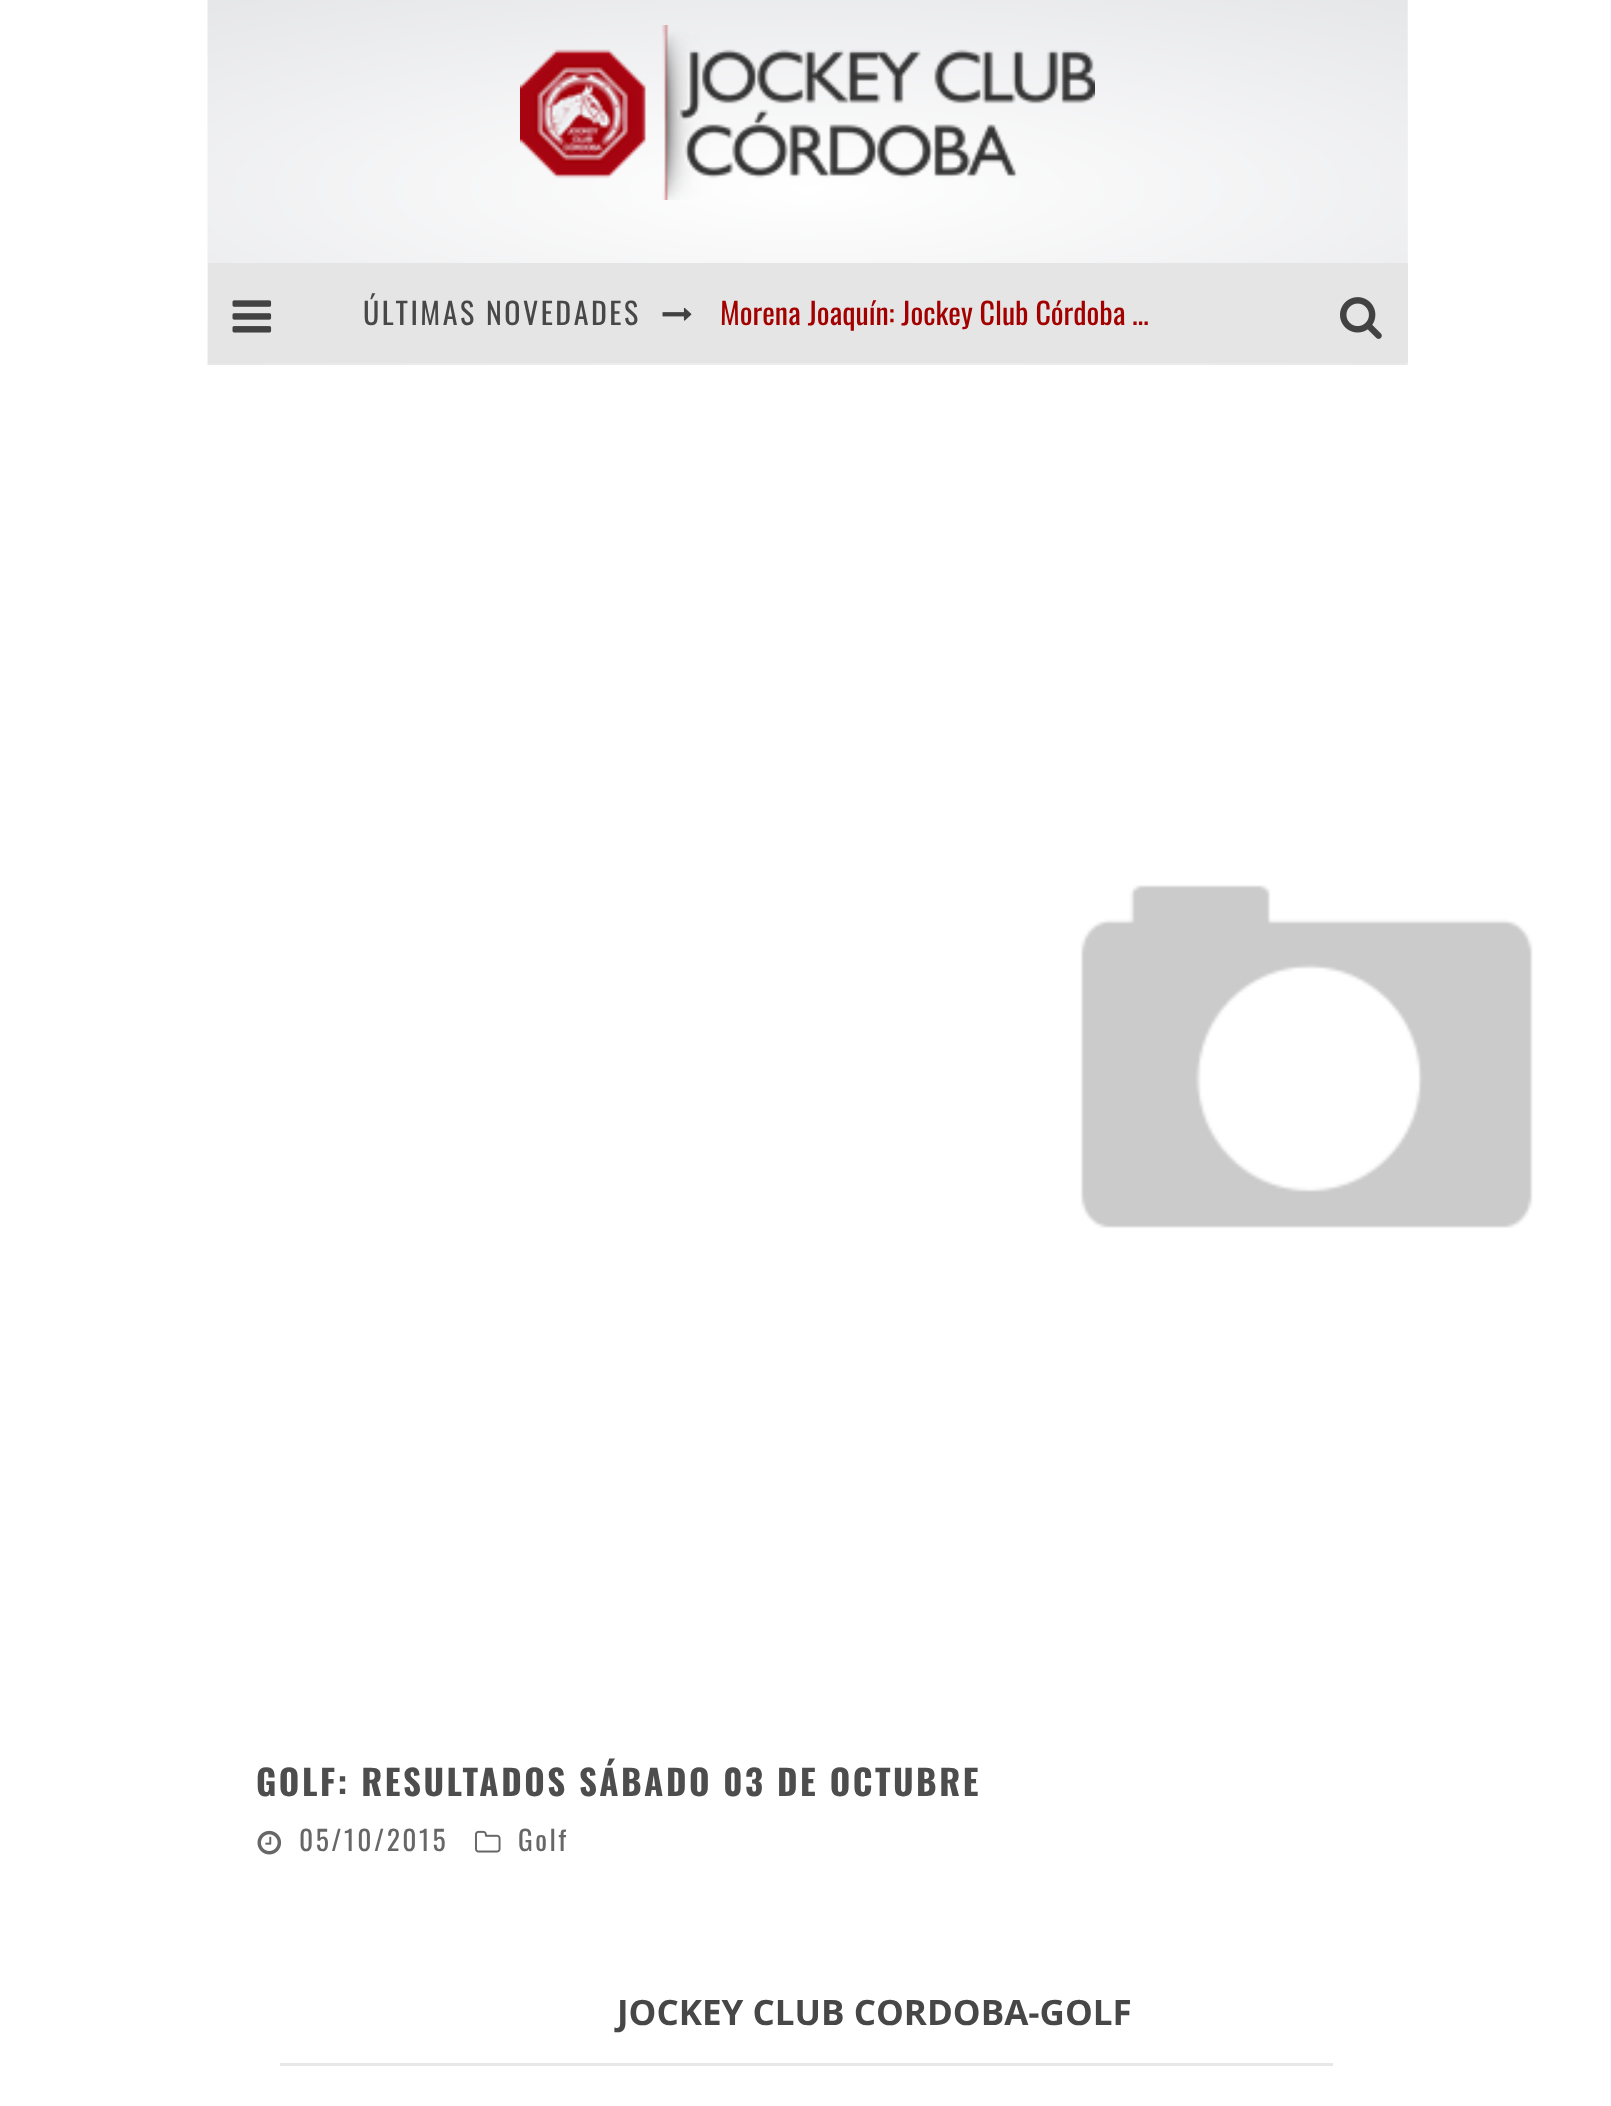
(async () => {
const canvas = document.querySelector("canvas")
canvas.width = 1611
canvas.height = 2106
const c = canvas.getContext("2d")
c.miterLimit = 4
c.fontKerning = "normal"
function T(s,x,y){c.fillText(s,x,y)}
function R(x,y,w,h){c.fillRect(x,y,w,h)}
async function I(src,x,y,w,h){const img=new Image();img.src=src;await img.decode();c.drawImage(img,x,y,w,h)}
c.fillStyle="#fff"
R(0,0,1611,2106)
await I("6.png",0,0,1611,2106)
c.fillStyle="#f5f5f5"
R(1407,0,1,365)
await I("1.png",207,0,1201,365)
await I("2.png",520,25,575,175)
c.fillStyle="#e5e5e5"
R(208,263,1200,100)
await I("3.png",232,300,40,33)
c.letterSpacing="2.5px"
c.font="30px Oswald"
c.fillStyle="#474747"
T("ÚLTIMAS NOVEDADES",363,325)
await I("4.png",662,307,30,14)
c.letterSpacing="0px"
c.fillStyle="#a30000"
T("Morena Joaquín: Jockey Club Córdoba …",720,325)
await I("5.png",1340,297,42,42)
c.letterSpacing="2.5px"
c.font="bold 35px Oswald"
c.fillStyle="#4d4d4d"
T("GOLF: RESULTADOS SÁBADO 03 DE OCTUBRE",256,1796)
await I("7.png",257,1830,25,25)
c.font="27.5px Oswald"
c.fillStyle="#676767"
T("05/10/2015",299,1851)
await I("8.png",475,1830,26,23)
T("Golf",518,1851)
c.fillStyle="#e7e7e7"
R(280,2063,1053,3)
c.letterSpacing="0px"
c.font="bold 35px Open Sans"
c.fillStyle="#474747"
T("JOCKEY CLUB CORDOBA-GOLF",617,2025)
})()
